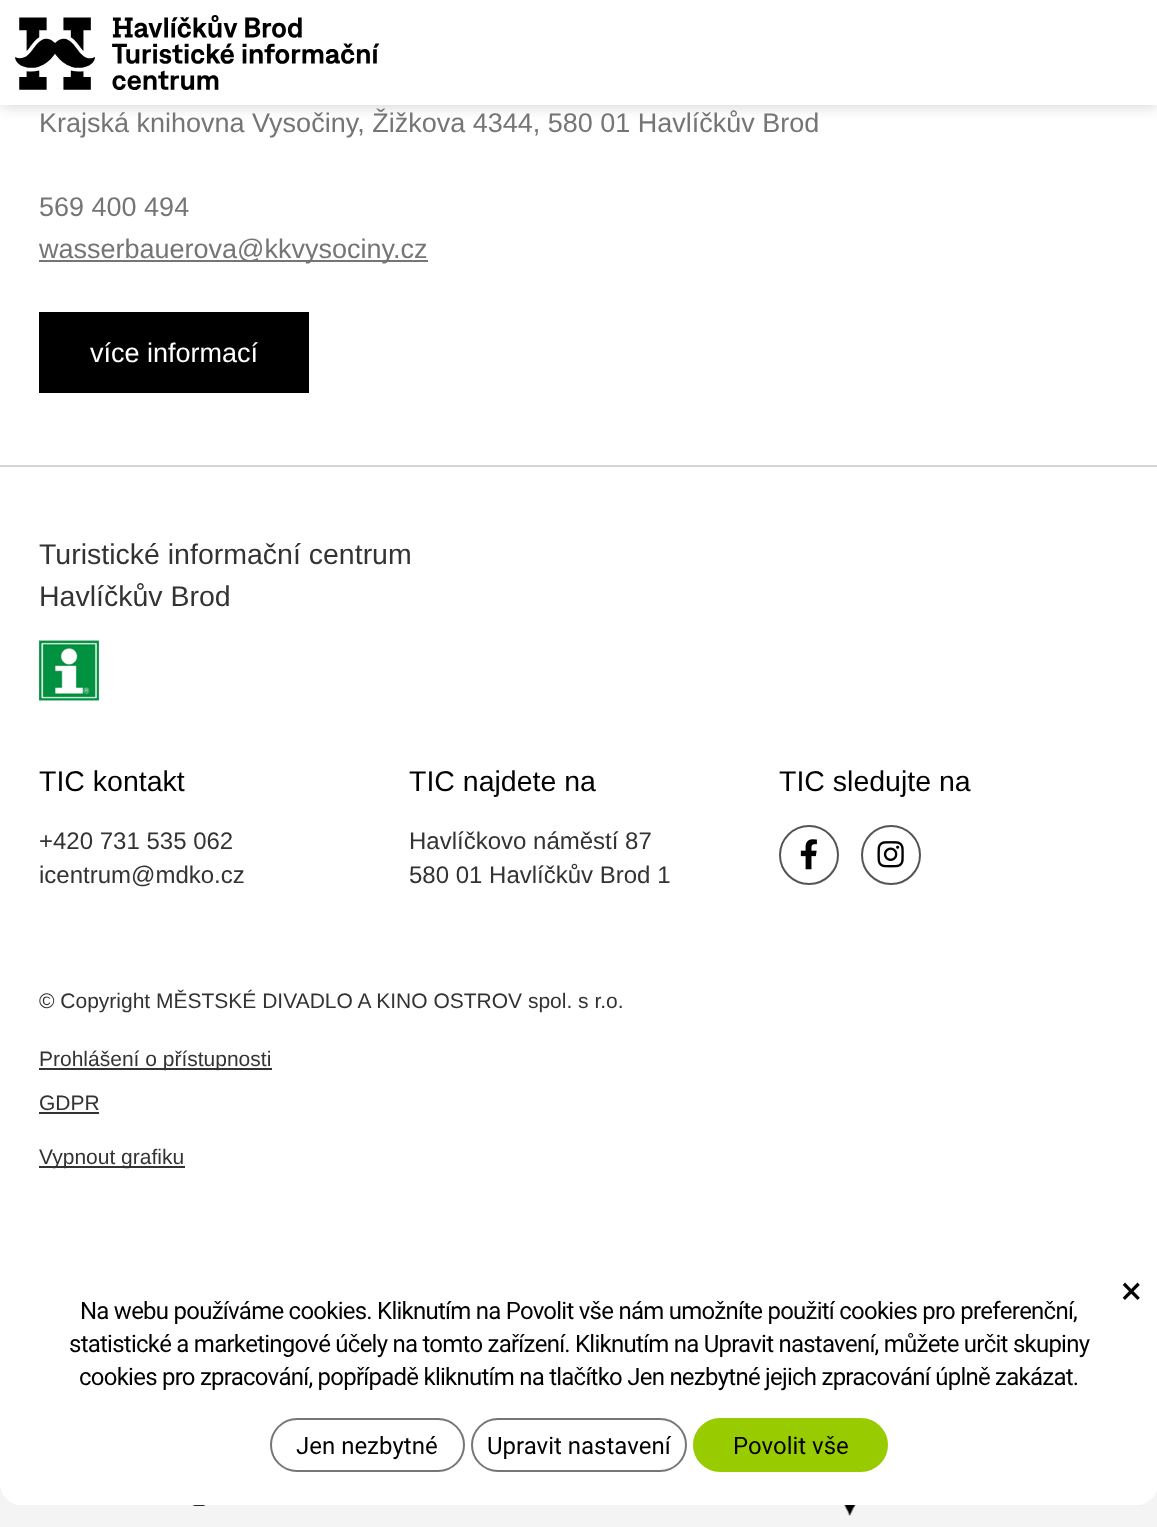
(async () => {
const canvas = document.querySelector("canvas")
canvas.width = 1157
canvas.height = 1527
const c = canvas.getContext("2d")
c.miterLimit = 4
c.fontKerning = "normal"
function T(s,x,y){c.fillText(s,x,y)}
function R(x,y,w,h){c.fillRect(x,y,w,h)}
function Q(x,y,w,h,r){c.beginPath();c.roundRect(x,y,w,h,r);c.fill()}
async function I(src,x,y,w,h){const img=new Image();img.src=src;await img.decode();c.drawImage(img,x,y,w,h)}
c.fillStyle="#fff"
R(0,0,1157,1527)
c.fillStyle="#00000033"
c.filter="blur(7.5px)"
c.beginPath()
c.rect(0,0,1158,105)
c.fill()
c.filter="none"
c.fillStyle="#fff"
R(0,0,1157,105)
await I("1.png",15,15,365,75)
c.font="27px Liberation Sans"
c.fillStyle="#757575"
T("Krajská knihovna Vysočiny, Žižkova 4344, 580 01 Havlíčkův Brod",39,132)
T("569 400 494",39,216)
R(39,260,389,2)
T("wasserbauerova@kkvysociny.cz",39,258)
c.fillStyle="#000"
R(39,312,270,81)
c.fillStyle="#fff"
T("více informací",90,362)
c.fillStyle="#d5d5d5"
R(0,465,1157,2)
c.font="28.5px Liberation Sans"
c.fillStyle="#333"
T("Turistické informační centrum",39,564)
T("Havlíčkův Brod",39,606)
await I("2.png",39,640,60,61)
c.fillStyle="#000"
T("TIC kontakt",39,791)
c.font="24px Liberation Sans"
c.fillStyle="#333"
T("+420 731 535 062",39,849)
T("icentrum@mdko.cz",39,883)
c.font="28.5px Liberation Sans"
c.fillStyle="#000"
T("TIC najdete na",409,791)
c.font="24px Liberation Sans"
c.fillStyle="#333"
T("Havlíčkovo náměstí 87",409,849)
T("580 01 Havlíčkův Brod 1",409,883)
c.font="28.5px Liberation Sans"
c.fillStyle="#000"
T("TIC sledujte na",779,791)
c.beginPath()
c.arc(809,855,29,0,7)
c.strokeStyle="#545454"
c.lineWidth=2
c.stroke()
await I("3.png",800,839,17,31)
c.beginPath()
c.arc(891,855,29,0,7)
c.stroke()
await I("4.png",877,841,27,27)
c.font="21px Liberation Sans"
c.fillStyle="#333"
T("© Copyright MĚSTSKÉ DIVADLO A KINO OSTROV spol. s r.o.",39,1008)
R(39,1068,233,2)
T("Prohlášení o přístupnosti",39,1066)
T("GDPR",39,1110)
R(39,1112,60,2)
R(39,1166,146,2)
T("Vypnout grafiku",39,1164)
c.fillStyle="#f4f4f4"
R(0,1484,1157,43)
await I("5.png",191,1505,16,1)
await I("6.png",844,1505,12,11)
c.fillStyle="#fff"
Q(0,1263,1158,242,21)
c.font="39px Roboto"
c.fillStyle="#000"
T("×",1121,1304)
c.letterSpacing="-0.75px"
c.font="24px Roboto"
T("Na webu používáme cookies. Kliknutím na Povolit vše nám umožníte použití cookies pro preferenční,",80,1319)
T("statistické a marketingové účely na tomto zařízení. Kliknutím na Upravit nastavení, můžete určit skupiny",69,1352)
T("cookies pro zpracování, popřípadě kliknutím na tlačítko Jen nezbytné jejich zpracování úplně zakázat.",79,1385)
c.beginPath()
c.roundRect(271,1419,193,52,26)
c.strokeStyle="#767676"
c.stroke()
c.letterSpacing="0px"
T("Jen nezbytné",296,1454)
c.beginPath()
c.roundRect(472,1419,214,52,26)
c.stroke()
T("Upravit nastavení",487,1454)
c.fillStyle="#9c0"
c.beginPath()
c.roundRect(694,1419,193,52,26)
c.fill()
c.strokeStyle="#9c0"
c.stroke()
c.fillStyle="#000"
T("Povolit vše",733,1454)
})()
